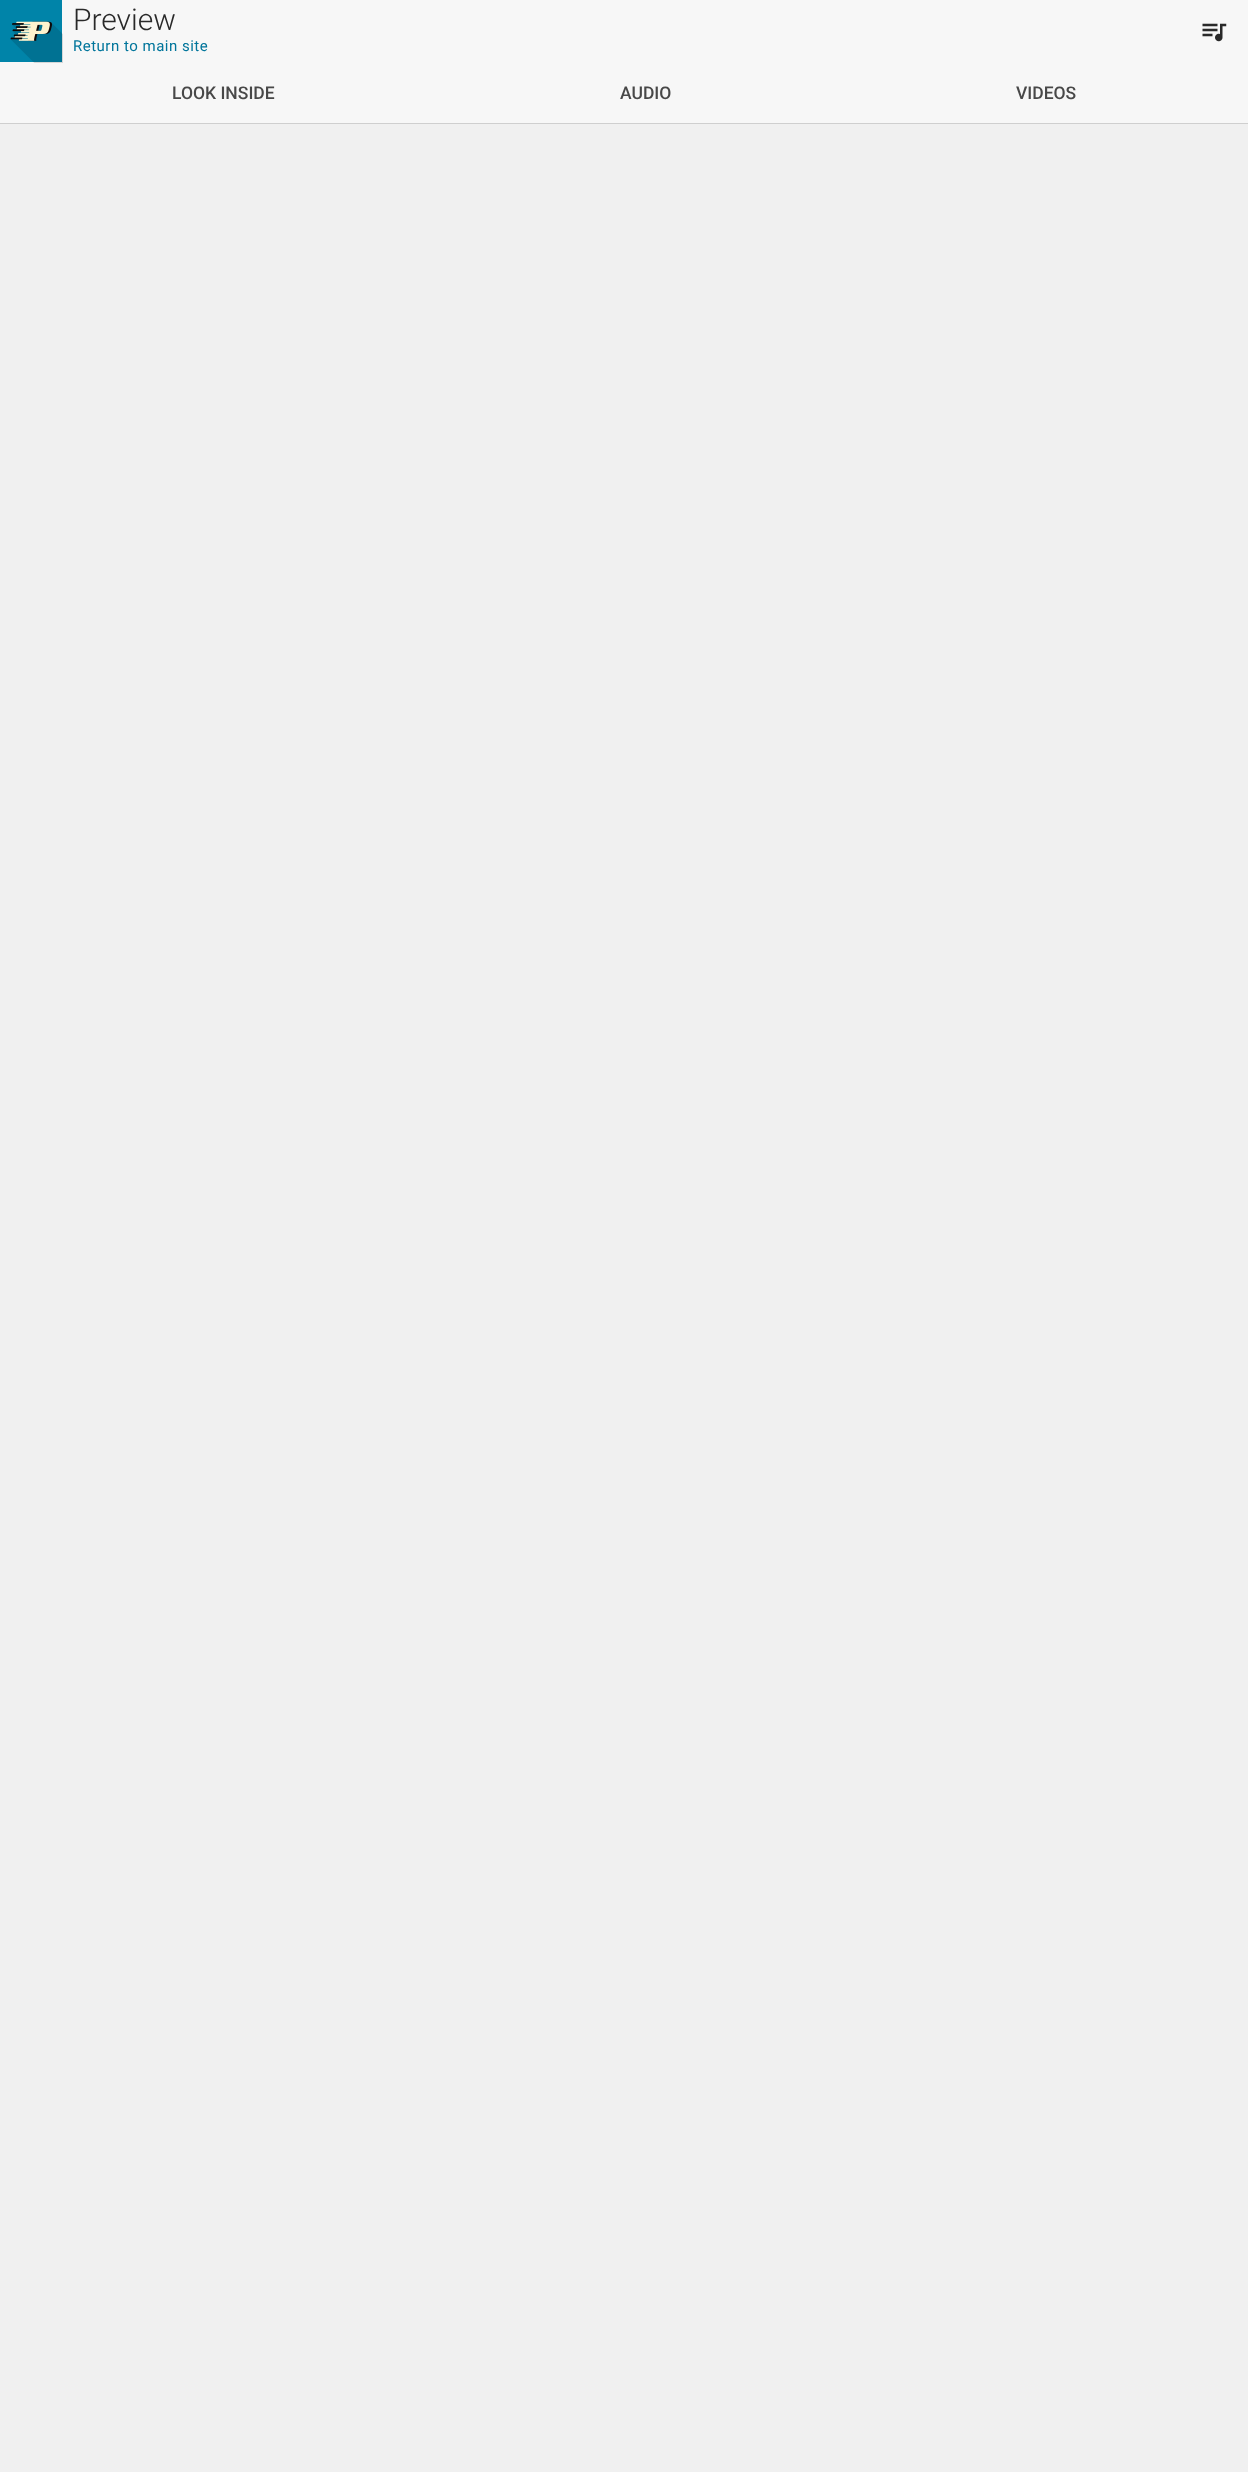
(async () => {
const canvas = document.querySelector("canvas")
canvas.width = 1248
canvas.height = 2472
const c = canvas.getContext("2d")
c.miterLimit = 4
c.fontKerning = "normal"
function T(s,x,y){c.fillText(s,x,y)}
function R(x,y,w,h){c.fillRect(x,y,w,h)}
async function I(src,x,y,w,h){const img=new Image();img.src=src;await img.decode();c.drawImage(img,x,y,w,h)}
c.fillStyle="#f0f0f0"
R(0,0,1248,2472)
c.fillStyle="#f7f7f7"
R(0,0,1248,123)
c.fillStyle="#cfcfcf"
R(0,123,1248,1)
await I("1.png",0,0,63,63)
c.font="300 30px Roboto"
c.fillStyle="#292929"
T("Preview",73,30)
c.letterSpacing="0.5px"
c.font="15px Roboto"
c.fillStyle="#00759b"
T("Return to main site",73,51)
await I("2.png",1202,23,25,19)
c.letterSpacing="0px"
c.font="500 17.5px Roboto"
c.fillStyle="#484848"
T("LOOK INSIDE",172,99)
T("AUDIO",620,99)
T("VIDEOS",1016,99)
})()
